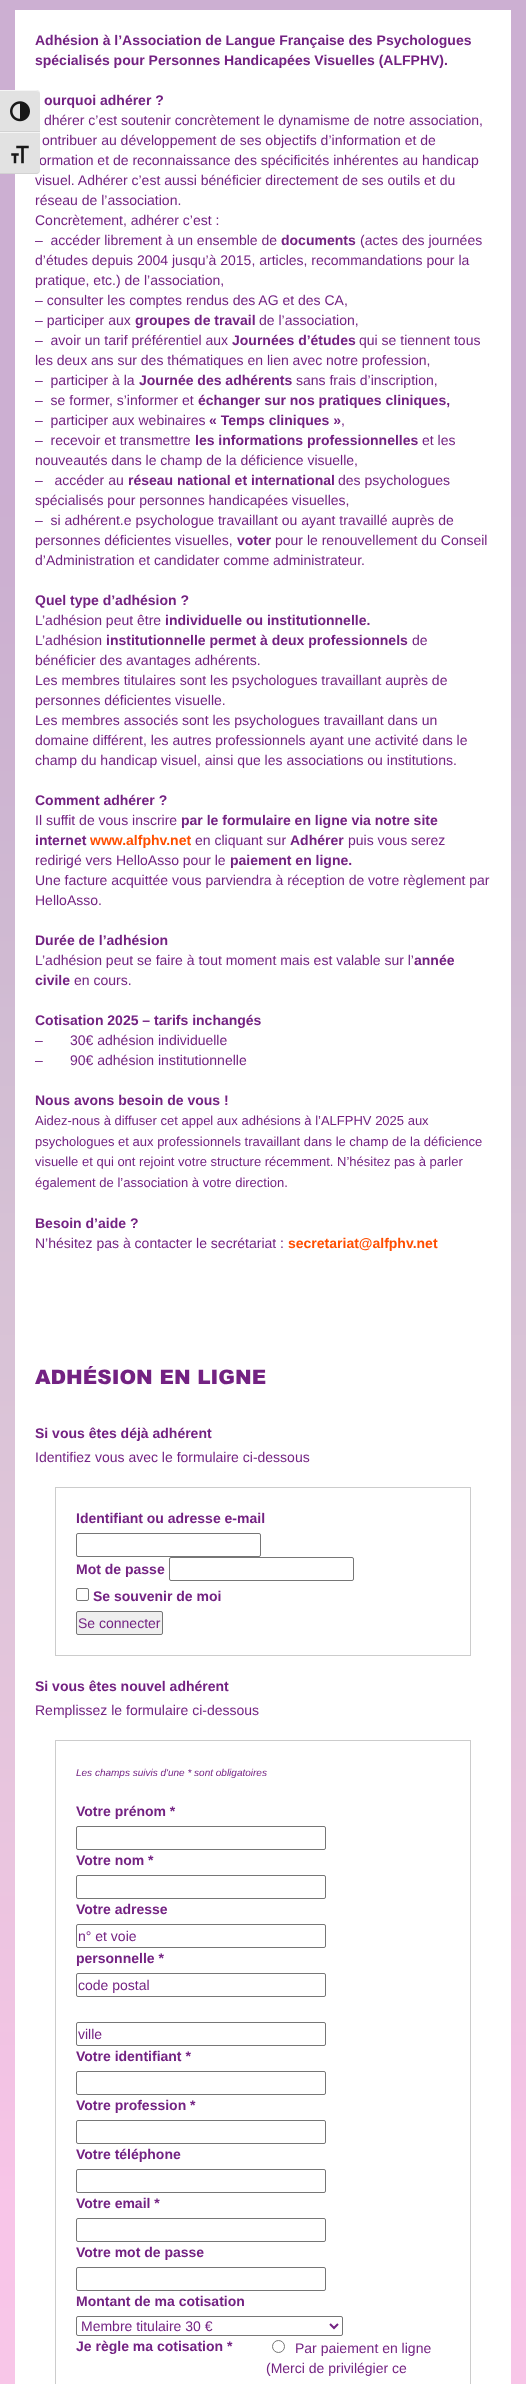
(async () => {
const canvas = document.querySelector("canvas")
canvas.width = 526
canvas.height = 2384
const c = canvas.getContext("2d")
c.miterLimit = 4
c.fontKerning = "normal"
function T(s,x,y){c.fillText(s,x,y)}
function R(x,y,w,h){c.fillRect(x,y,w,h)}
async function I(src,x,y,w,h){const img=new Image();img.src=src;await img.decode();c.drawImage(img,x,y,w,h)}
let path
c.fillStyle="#fff"
R(0,0,526,2384)
await I("3.png",0,0,526,2384)
R(15,10,496,2374)
c.fillStyle="#e2e2e2"
c.beginPath()
c.roundRect(0,90,40,42,[0,4,0,0])
c.fill()
c.fillStyle="#f5f5f5"
path = new Path2D("M0 90v1h36c2 0 4 1 4 3c0-2-2-4-4-4z")
c.fill(path)
c.fillStyle="#d2d2d2"
R(0,131,40,1)
await I("1.png",10,101,20,21)
c.font="14px Liberation Sans"
c.fillStyle="#732282"
T("ormation et de reconnaissance des spécificités inhérentes au handicap",39,165)
c.fillStyle="#e2e2e2"
c.beginPath()
c.roundRect(0,132,40,42,[0,0,4,0])
c.fill()
c.fillStyle="#f5f5f5"
R(0,132,40,1)
c.fillStyle="#d2d2d2"
path = new Path2D("M0 173v1h36c2 0 4-2 4-4c0 2-2 3-4 3z")
c.fill(path)
await I("2.png",11,145,18,19)
c.font="bold 14px Liberation Sans"
c.fillStyle="#732282"
T("Adhésion à l’Association de Langue Française des Psychologues",35,45)
T("spécialisés pour Personnes Handicapées Visuelles (ALFPHV).",35,65)
T("ourquoi adhérer ?",44,105)
c.font="14px Liberation Sans"
T("dhérer c’est soutenir concrètement le dynamisme de notre association,",44,125)
T("ontribuer au développement de ses objectifs d’information et de",42,145)
T("visuel. Adhérer c’est aussi bénéficier directement de ses outils et du",35,185)
T("réseau de l’association.",35,205)
T("Concrètement, adhérer c’est :",35,225)
T("–  accéder librement à un ensemble de",35,245)
c.font="bold 14px Liberation Sans"
T("documents",281,245)
c.font="14px Liberation Sans"
T("(actes des journées",360,245)
T("d’études depuis 2004 jusqu’à 2015, articles, recommandations pour la",35,265)
T("pratique, etc.) de l’association,",35,285)
T("– consulter les comptes rendus des AG et des CA,",35,305)
T("– participer aux",35,325)
c.font="bold 14px Liberation Sans"
T("groupes de travail",135,325)
c.font="14px Liberation Sans"
T("de l’association,",259,325)
T("–  avoir un tarif préférentiel aux",35,345)
c.font="bold 14px Liberation Sans"
T("Journées d’études",232,345)
c.font="14px Liberation Sans"
T("qui se tiennent tous",359,345)
T("les deux ans sur des thématiques en lien avec notre profession,",35,365)
T("–  participer à la",35,385)
c.font="bold 14px Liberation Sans"
T("Journée des adhérents",139,385)
c.font="14px Liberation Sans"
T("sans frais d’inscription,",296,385)
T("–  se former, s’informer et",35,405)
c.font="bold 14px Liberation Sans"
T("échanger sur nos pratiques cliniques,",198,405)
c.font="14px Liberation Sans"
T("–  participer aux webinaires",35,425)
c.font="bold 14px Liberation Sans"
T("« Temps cliniques »",209,425)
c.font="14px Liberation Sans"
T(",",341,425)
T("–  recevoir et transmettre",35,445)
c.font="bold 14px Liberation Sans"
T("les informations professionnelles",195,445)
c.font="14px Liberation Sans"
T("et les",422,445)
T("nouveautés dans le champ de la déficience visuelle,",35,465)
T("–   accéder au",35,485)
c.font="bold 14px Liberation Sans"
T("réseau national et international",128,485)
c.font="14px Liberation Sans"
T("des psychologues",338,485)
T("spécialisés pour personnes handicapées visuelles,",35,505)
T("–  si adhérent.e psychologue travaillant ou ayant travaillé auprès de",35,525)
T("personnes déficientes visuelles,",35,545)
c.font="bold 14px Liberation Sans"
T("voter",237,545)
c.font="14px Liberation Sans"
T("pour le renouvellement du Conseil",275,545)
T("d’Administration et candidater comme administrateur.",35,565)
c.font="bold 14px Liberation Sans"
T("Quel type d’adhésion ?",35,605)
c.font="14px Liberation Sans"
T("L’adhésion peut être",35,625)
c.font="bold 14px Liberation Sans"
T("individuelle ou institutionnelle.",165,625)
c.font="14px Liberation Sans"
T("L’adhésion",35,645)
c.font="bold 14px Liberation Sans"
T("institutionnelle permet à deux professionnels",106,645)
c.font="14px Liberation Sans"
T("de",412,645)
T("bénéficier des avantages adhérents.",35,665)
T("Les membres titulaires sont les psychologues travaillant auprès de",35,685)
T("personnes déficientes visuelle.",35,705)
T("Les membres associés sont les psychologues travaillant dans un",35,725)
T("domaine différent, les autres professionnels ayant une activité dans le",35,745)
T("champ du handicap visuel, ainsi que les associations ou institutions.",35,765)
c.font="bold 14px Liberation Sans"
T("Comment adhérer ?",35,805)
c.font="14px Liberation Sans"
T("Il suffit de vous inscrire",35,825)
c.font="bold 14px Liberation Sans"
T("par le formulaire en ligne via notre site",181,825)
T("internet",35,845)
c.fillStyle="#ff4e00"
T("www.alfphv.net",90,845)
c.font="14px Liberation Sans"
c.fillStyle="#732282"
T("en cliquant sur",195,845)
c.font="bold 14px Liberation Sans"
T("Adhérer",290,845)
c.font="14px Liberation Sans"
T("puis vous serez",348,845)
T("redirigé vers HelloAsso pour le",35,865)
c.font="bold 14px Liberation Sans"
T("paiement en ligne.",230,865)
c.font="14px Liberation Sans"
T("Une facture acquittée vous parviendra à réception de votre règlement par",35,885)
T("HelloAsso.",35,905)
c.font="bold 14px Liberation Sans"
T("Durée de l’adhésion",35,945)
c.font="14px Liberation Sans"
T("L’adhésion peut se faire à tout moment mais est valable sur l’",35,965)
c.font="bold 14px Liberation Sans"
T("année",414,965)
T("civile",35,985)
c.font="14px Liberation Sans"
T("en cours.",74,985)
c.font="bold 14px Liberation Sans"
T("Cotisation 2025 – tarifs inchangés",35,1025)
c.font="14px Liberation Sans"
T("–       30€ adhésion individuelle",35,1045)
T("–       90€ adhésion institutionnelle",35,1065)
c.font="bold 14px Liberation Sans"
T("Nous avons besoin de vous !",35,1105)
c.font="13px Liberation Sans"
T("Aidez-nous à diffuser cet appel aux adhésions à l’ALFPHV 2025 aux",35,1125)
T("psychologues et aux professionnels travaillant dans le champ de la déficience",35,1146)
T("visuelle et qui ont rejoint votre structure récemment. N’hésitez pas à parler",35,1166)
T("également de l’association à votre direction.",35,1187)
c.font="bold 14px Liberation Sans"
T("Besoin d’aide ?",35,1228)
c.font="14px Liberation Sans"
T("N’hésitez pas à contacter le secrétariat :",35,1248)
c.font="bold 14px Liberation Sans"
c.fillStyle="#ff4e00"
T("secretariat@alfphv.net",288,1248)
c.font="900 20px Arial"
c.fillStyle="#732282"
T("ADHÉSION EN LIGNE",35,1384)
c.font="bold 14px Liberation Sans"
T("Si vous êtes déjà adhérent",35,1438)
c.font="14px Liberation Sans"
T("Identifiez vous avec le formulaire ci-dessous",35,1462)
c.strokeStyle="#ccc"
c.strokeRect(55.5,1487.5,415,168)
c.font="bold 14px Liberation Sans"
T("Identifiant ou adresse e-mail",76,1523)
c.beginPath()
c.roundRect(76.5,1533.5,184,23,1.5)
c.strokeStyle="#767676"
c.stroke()
T("Mot de passe",76,1574)
c.beginPath()
c.roundRect(169.5,1557.5,184,23,1.5)
c.stroke()
c.beginPath()
c.roundRect(76.5,1588.5,12,12,1.5)
c.stroke()
T("Se souvenir de moi",93,1601)
c.fillStyle="#efefef"
c.beginPath()
c.roundRect(76.5,1611.5,86,23,1.5)
c.fill()
c.stroke()
c.font="14px Liberation Sans"
c.fillStyle="#732282"
T("Se connecter",78,1628)
c.font="bold 14px Liberation Sans"
T("Si vous êtes nouvel adhérent",35,1691)
c.font="14px Liberation Sans"
T("Remplissez le formulaire ci-dessous",35,1715)
c.strokeStyle="#ccc"
c.strokeRect(55.5,1740.5,415,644)
c.font="italic 10px Liberation Sans"
T("Les champs suivis d'une * sont obligatoires",76,1776)
c.font="bold 14px Liberation Sans"
T("Votre prénom *",76,1816)
c.beginPath()
c.roundRect(76.5,1826.5,249,23,1.5)
c.strokeStyle="#767676"
c.stroke()
T("Votre nom *",76,1865)
c.beginPath()
c.roundRect(76.5,1875.5,249,23,1.5)
c.stroke()
T("Votre adresse",76,1914)
c.beginPath()
c.roundRect(76.5,1924.5,249,23,1.5)
c.stroke()
c.font="14px Liberation Sans"
T("n° et voie",78,1941)
c.font="bold 14px Liberation Sans"
T("personnelle *",76,1963)
c.beginPath()
c.roundRect(76.5,1973.5,249,23,1.5)
c.stroke()
c.font="14px Liberation Sans"
T("code postal",78,1990)
c.beginPath()
c.roundRect(76.5,2022.5,249,23,1.5)
c.stroke()
T("ville",78,2039)
c.font="bold 14px Liberation Sans"
T("Votre identifiant *",76,2061)
c.beginPath()
c.roundRect(76.5,2071.5,249,23,1.5)
c.stroke()
T("Votre profession *",76,2110)
c.beginPath()
c.roundRect(76.5,2120.5,249,23,1.5)
c.stroke()
T("Votre téléphone",76,2159)
c.beginPath()
c.roundRect(76.5,2169.5,249,23,1.5)
c.stroke()
T("Votre email *",76,2208)
c.beginPath()
c.roundRect(76.5,2218.5,249,23,1.5)
c.stroke()
T("Votre mot de passe",76,2257)
c.beginPath()
c.roundRect(76.5,2267.5,249,23,1.5)
c.stroke()
T("Montant de ma cotisation",76,2306)
c.beginPath()
c.roundRect(76.5,2316.5,266,19,1.5)
c.stroke()
path = new Path2D("M330 2324l4 4l4-4")
c.strokeStyle="#732282"
c.lineWidth=2
c.stroke(path)
c.font="14px Liberation Sans"
T("Membre titulaire 30 €",81,2331)
c.font="bold 14px Liberation Sans"
T("Je règle ma cotisation *",76,2351)
c.beginPath()
c.arc(278.5,2346.5,6,0,7)
c.strokeStyle="#767676"
c.lineWidth=1
c.stroke()
c.font="14px Liberation Sans"
T("Par paiement en ligne",295,2353)
T("(Merci de privilégier ce",266,2373)
})()
